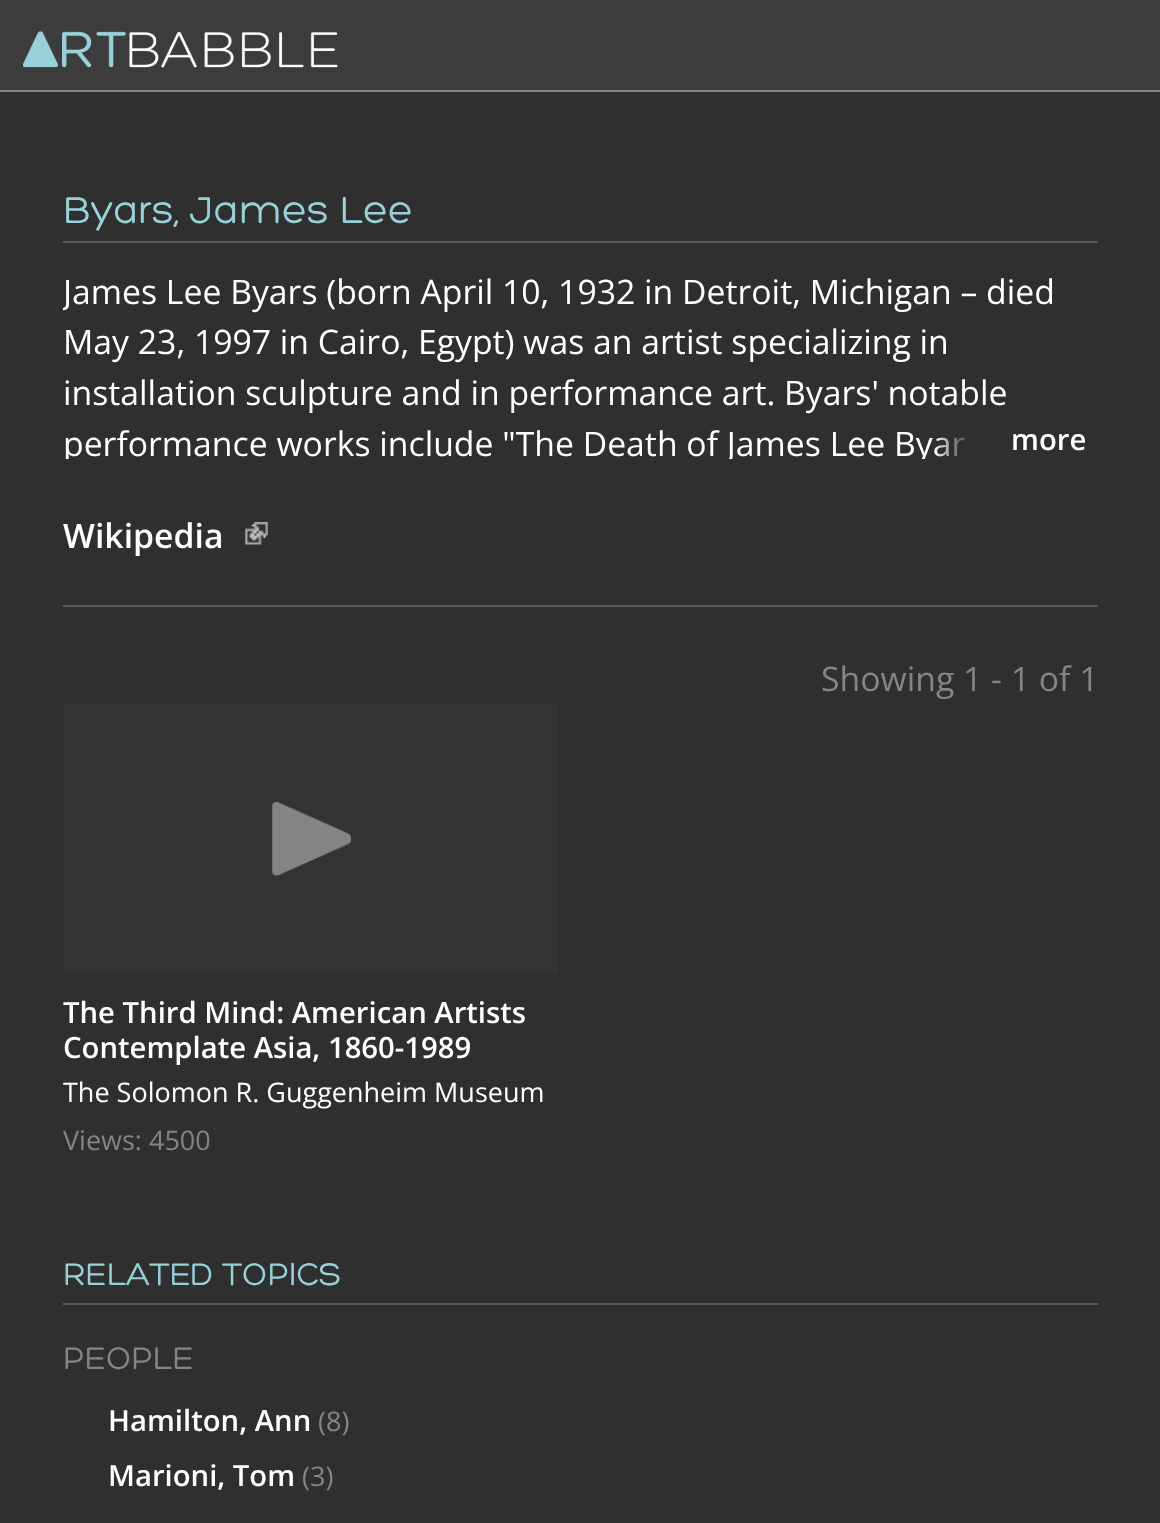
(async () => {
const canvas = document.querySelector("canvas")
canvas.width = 1160
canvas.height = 1523
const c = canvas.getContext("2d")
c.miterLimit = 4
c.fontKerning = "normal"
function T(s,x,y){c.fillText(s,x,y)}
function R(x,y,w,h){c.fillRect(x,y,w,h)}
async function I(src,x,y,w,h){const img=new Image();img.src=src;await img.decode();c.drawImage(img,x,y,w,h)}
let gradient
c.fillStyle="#2f2f2f"
R(0,0,1160,1523)
c.fillStyle="#3c3c3c"
R(0,0,1160,90)
c.fillStyle="#858585"
R(0,90,1160,2)
await I("1.png",23,31,315,37)
c.fillStyle="#595959"
R(63,241,1035,2)
c.font="40.5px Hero"
c.fillStyle="#98d0d8"
T("Byars, James Lee",63,223)
c.fillStyle="#595959"
R(63,605,1035,2)
c.save()
c.beginPath()
c.rect(63,266,1035,193)
c.clip()
c.font="33.75px Open Sans"
c.fillStyle="#fff"
T("James Lee Byars (born April 10, 1932 in Detroit, Michigan – died",63,304)
c.restore()
c.font="33.75px Open Sans"
c.fillStyle="#fff"
T("May 23, 1997 in Cairo, Egypt) was an artist specializing in",63,354)
T("installation sculpture and in performance art. Byars' notable",63,405)
c.save()
c.beginPath()
c.rect(63,266,1035,193)
c.clip()
T("performance works include \"The Death of James Lee Byar",63,456)
c.restore()
gradient = c.createLinearGradient(934,440,1098,440)
gradient.addColorStop(0,"#2e2e2e00")
gradient.addColorStop(.15,"#2e2e2eb3")
gradient.addColorStop(.29,"#2e2e2e")
c.fillStyle = gradient
R(935,437,30,20)
c.font="600 29.25px Open Sans"
c.fillStyle="#fff"
T("more",1011,450)
await I("2.png",245,522,23,23)
c.font="600 33.75px Open Sans"
T("Wikipedia",63,548)
c.font="33.75px Open Sans"
c.fillStyle="#858585"
T("Showing 1 - 1 of 1",821,691)
c.fillStyle="#333"
R(63,704,495,270)
await I("3.png",272,802,79,74)
c.font="600 29.25px Open Sans"
c.fillStyle="#fff"
T("The Third Mind: American Artists",63,1023)
T("Contemplate Asia, 1860-1989",63,1058)
c.font="27px Open Sans"
T("The Solomon R. Guggenheim Museum",63,1102)
c.fillStyle="#858585"
T("Views: 4500",63,1150)
c.fillStyle="#595959"
R(63,1303,1035,2)
c.font="33.75px Hero"
c.fillStyle="#98d0d8"
T("RELATED TOPICS",63,1285)
c.fillStyle="#858585"
T("PEOPLE",63,1369)
c.font="600 29.25px Open Sans"
c.fillStyle="#fff"
T("Hamilton, Ann",108,1431)
c.font="27px Open Sans"
c.fillStyle="#858585"
T("(8)",318,1431)
c.font="600 29.25px Open Sans"
c.fillStyle="#fff"
T("Marioni, Tom",108,1486)
c.font="27px Open Sans"
c.fillStyle="#858585"
T("(3)",302,1486)
})()
